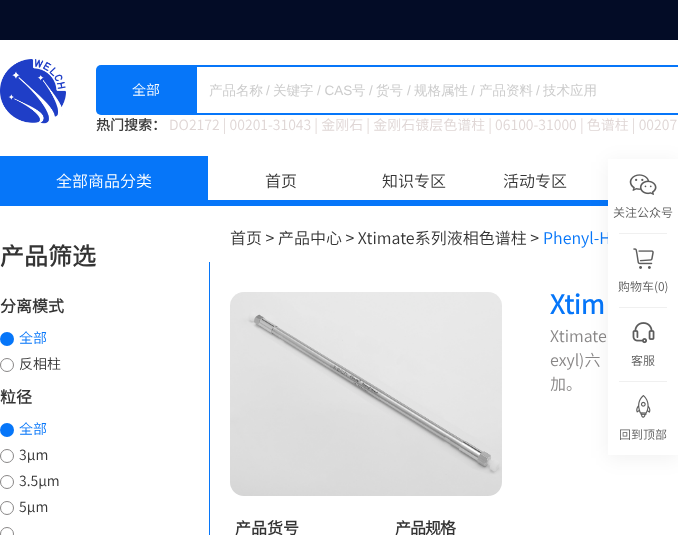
(async () => {
const canvas = document.querySelector("canvas")
canvas.width = 678
canvas.height = 535
const c = canvas.getContext("2d")
c.miterLimit = 4
c.fontKerning = "normal"
function T(s,x,y){c.fillText(s,x,y)}
function R(x,y,w,h){c.fillRect(x,y,w,h)}
async function I(src,x,y,w,h){const img=new Image();img.src=src;await img.decode();c.drawImage(img,x,y,w,h)}
c.fillStyle="#030c26"
R(0,0,678,535)
c.fillStyle="#fff"
R(0,40,678,116)
await I("1.png",0,59,66,65)
c.fillStyle="#0676f9"
c.beginPath()
c.roundRect(96,65,99,50,[5,0,0,5])
c.fill()
c.font="300 14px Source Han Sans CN"
c.fillStyle="#fff"
T("全部",132,95)
c.fillStyle="#0676f9"
R(195,65,483,2)
R(195,113,483,2)
R(195,65,2,50)
c.font="500 13.5px WenQuanYi Zen Hei"
c.fillStyle="#ccc"
T("产品名称",209,95)
c.font="13.5px Liberation Sans"
T("/",266,95)
c.font="500 13.5px WenQuanYi Zen Hei"
T("关键字",273,95)
c.font="13.5px Liberation Sans"
T("/ CAS",317,95)
c.font="500 13.5px WenQuanYi Zen Hei"
T("号",352,95)
c.font="13.5px Liberation Sans"
T("/",369,95)
c.font="500 13.5px WenQuanYi Zen Hei"
T("货号",376,95)
c.font="13.5px Liberation Sans"
T("/",407,95)
c.font="500 13.5px WenQuanYi Zen Hei"
T("规格属性",414,95)
c.font="13.5px Liberation Sans"
T("/",471,95)
c.font="500 13.5px WenQuanYi Zen Hei"
T("产品资料",479,95)
c.font="13.5px Liberation Sans"
T("/",536,95)
c.font="500 13.5px WenQuanYi Zen Hei"
T("技术应用",543,95)
c.font="bold 14px Source Han Sans CN"
c.fillStyle="#3b3b3b"
T("热门搜索：",96,130)
c.font="300 14px Source Han Sans CN"
c.fillStyle="#dfd6d5"
T("DO2172 | 00201-31043 | 金刚石 | 金刚石镀层色谱柱 | 06100-31000 | 色谱柱 | 00207",169,130)
c.fillStyle="#fff"
R(208,156,470,44)
c.fillStyle="#0676f9"
R(208,200,400,6)
R(0,156,208,50)
c.font="300 16px Source Han Sans CN"
c.fillStyle="#fff"
T("全部商品分类",56,187)
c.fillStyle="#343434"
T("首页",265,187)
T("知识专区",382,187)
T("活动专区",503,187)
c.fillStyle="#fff"
R(0,206,678,329)
c.fillStyle="#343434"
T("首页 > 产品中心 > Xtimate系列液相色谱柱 >",230,244)
c.fillStyle="#0676f9"
T("Phenyl-H",543,244)
R(209,262,1,273)
c.font="bold 24px Source Han Sans CN"
c.fillStyle="#343434"
T("产品筛选",0,265)
c.font="bold 16px Source Han Sans CN"
T("分离模式",0,312)
c.fillStyle="#0676f9"
c.beginPath()
c.arc(7,339,7,0,7)
c.fill()
c.font="300 14px Source Han Sans CN"
T("全部",19,343)
c.beginPath()
c.arc(7,365,6.5,0,7)
c.strokeStyle="#898787"
c.stroke()
c.fillStyle="#343434"
T("反相柱",19,369)
c.font="bold 16px Source Han Sans CN"
T("粒径",0,403)
c.fillStyle="#0676f9"
c.beginPath()
c.arc(7,430,7,0,7)
c.fill()
c.font="300 14px Source Han Sans CN"
T("全部",19,434)
c.beginPath()
c.arc(7,456,6.5,0,7)
c.stroke()
c.fillStyle="#343434"
T("3µm",19,460)
c.beginPath()
c.arc(7,482,6.5,0,7)
c.stroke()
T("3.5µm",19,486)
c.beginPath()
c.arc(7,508,6.5,0,7)
c.stroke()
T("5µm",19,512)
c.beginPath()
c.arc(7,534,6.5,0,7)
c.stroke()
await I("2.png",230,292,272,204)
c.font="bold 26px Source Han Sans CN"
c.fillStyle="#0676f9"
T("Xtim",550,314)
c.font="300 16px Source Han Sans CN"
c.fillStyle="#898787"
T("Xtimate",550,342)
T("exyl)六",550,366)
T("加。",550,390)
c.font="bold 16px Source Han Sans CN"
c.fillStyle="#343434"
T("产品货号",235,534)
c.letterSpacing="-1px"
T("产品规格",395,534)
c.fillStyle="#0000000f"
c.filter="blur(10px)"
c.beginPath()
c.rect(608,162,70,296)
c.fill()
c.filter="none"
c.fillStyle="#fff"
R(608,159,70,296)
await I("3.png",629,174,28,21)
c.letterSpacing="0px"
c.font="300 12px Source Han Sans CN"
c.fillStyle="#5c5c5c"
T("关注公众号",613,217)
c.fillStyle="#f0f0f0"
R(619,233,48,1)
await I("4.png",633,248,21,21)
c.fillStyle="#5c5c5c"
T("购物车(0)",618,291)
c.fillStyle="#f0f0f0"
R(619,307,48,1)
await I("5.png",632,322,23,22)
c.fillStyle="#5c5c5c"
T("客服",631,365)
c.fillStyle="#f0f0f0"
R(619,381,48,1)
await I("6.png",636,395,15,23)
c.fillStyle="#5c5c5c"
T("回到顶部",619,439)
})()
